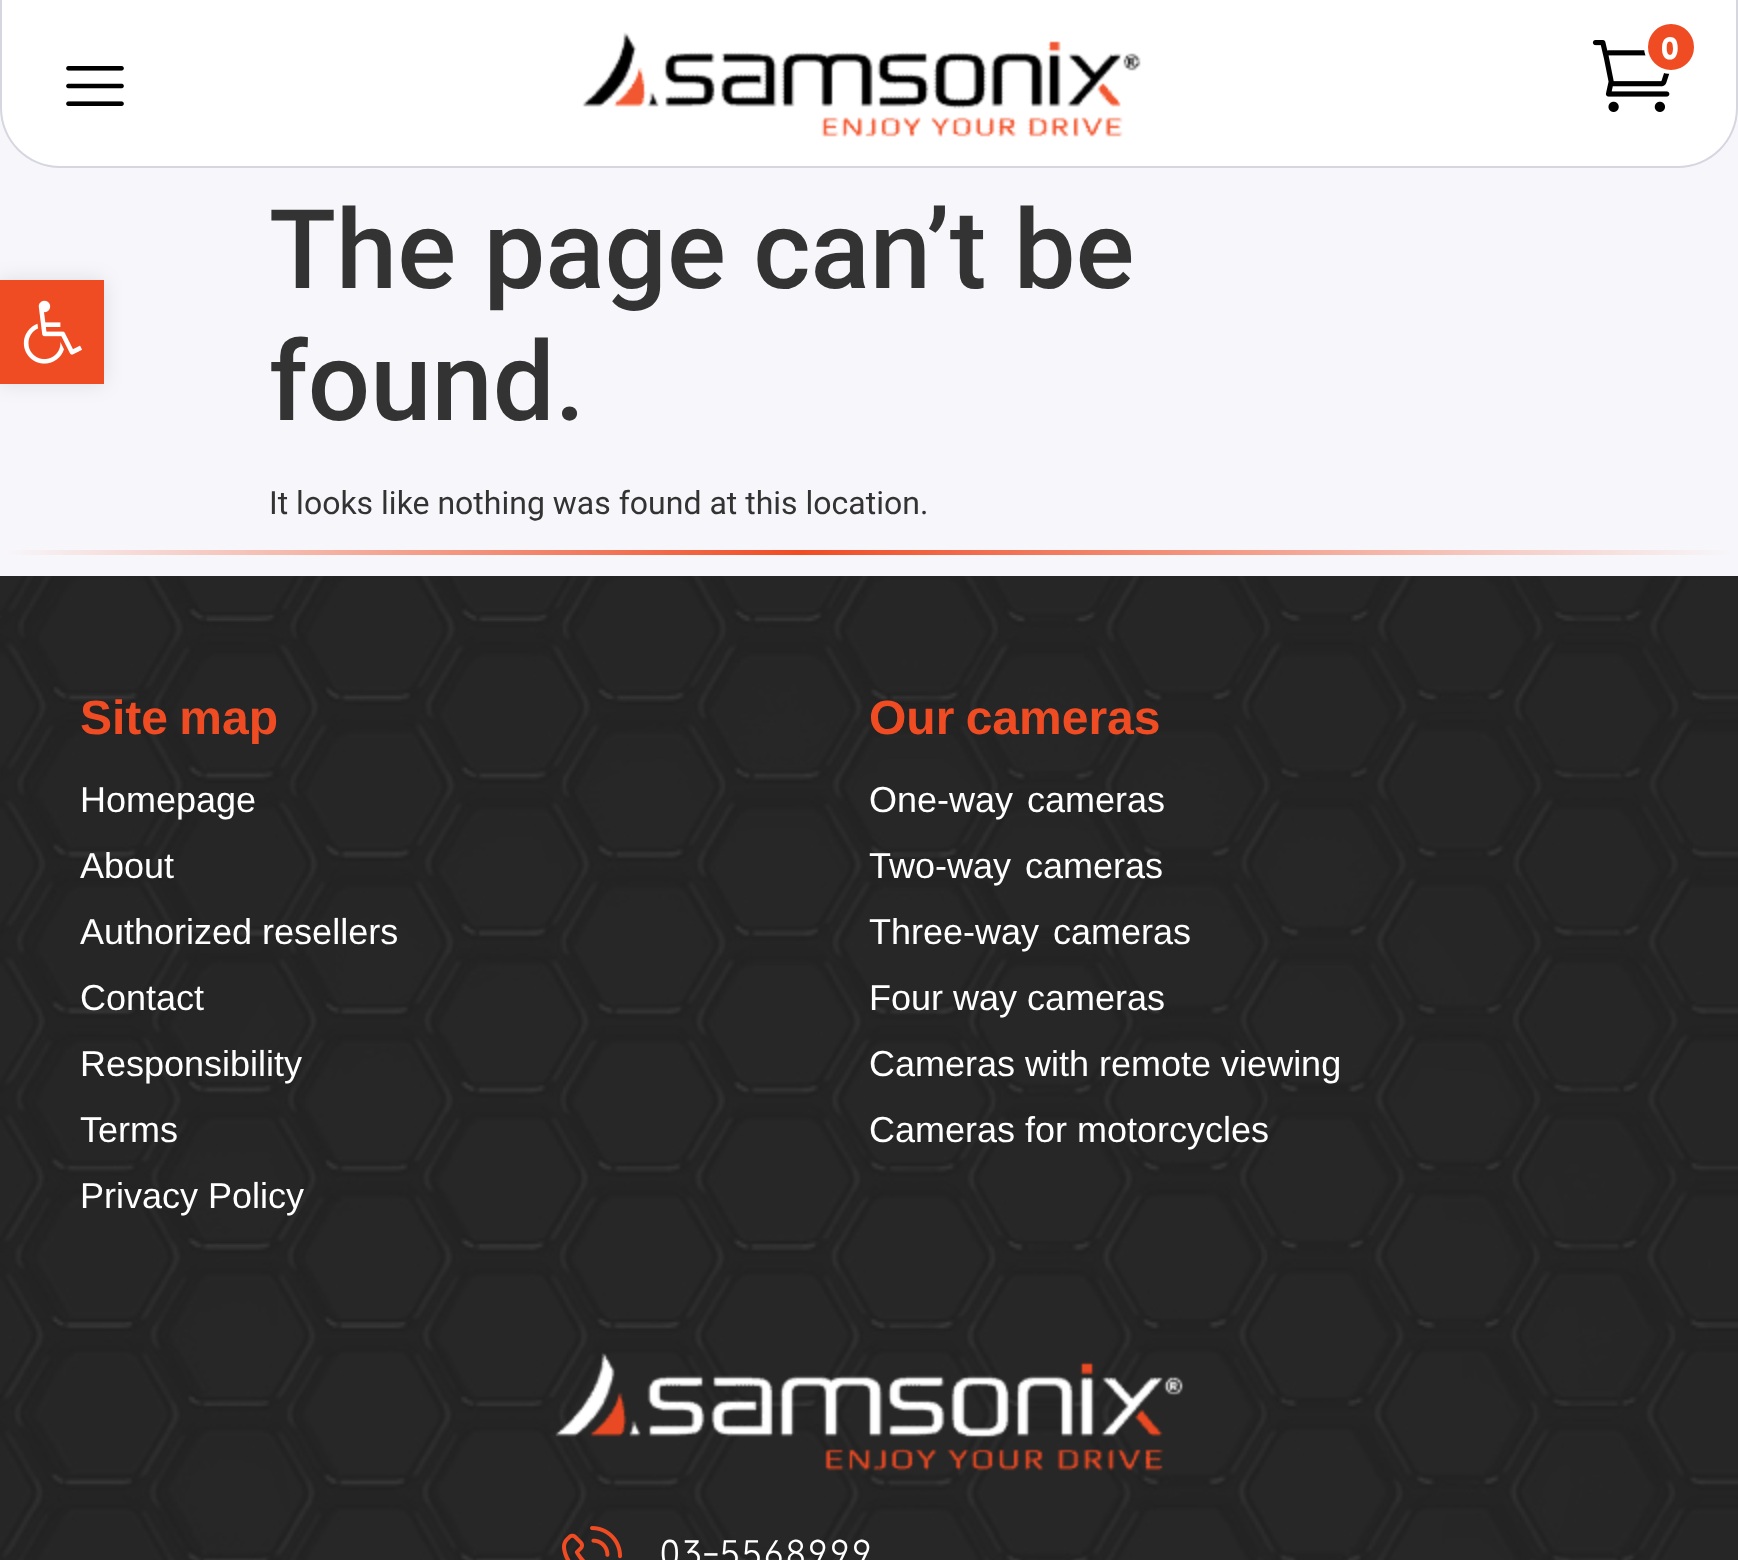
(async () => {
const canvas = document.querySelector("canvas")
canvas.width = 1738
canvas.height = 1560
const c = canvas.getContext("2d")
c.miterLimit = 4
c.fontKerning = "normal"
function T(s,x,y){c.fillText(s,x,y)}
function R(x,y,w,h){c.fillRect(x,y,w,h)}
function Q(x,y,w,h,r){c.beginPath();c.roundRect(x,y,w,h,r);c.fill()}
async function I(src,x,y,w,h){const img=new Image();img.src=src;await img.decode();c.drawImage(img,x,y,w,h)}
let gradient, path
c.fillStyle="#f7f7fb"
R(0,0,1738,1560)
c.fillStyle="#fff"
c.beginPath()
c.roundRect(2,0,1734,166,[0,0,58,58])
c.fill()
c.fillStyle="#d6d6e1"
path = new Path2D("M0 0h1738v108c0 33-27 60-60 60h-1618c-33 0-60-27-60-60zm2 0h1734v108c0 32-26 58-58 58h-1618c-32 0-58-26-58-58z")
c.fill(path,"evenodd")
await I("1.png",582,32,559,105)
await I("2.png",1592,40,78,72)
c.fillStyle="#f04c23"
c.beginPath()
c.arc(1671,47,25,0,7)
c.fill()
c.strokeStyle="#fff"
c.lineWidth=4
c.stroke()
c.font="bold 30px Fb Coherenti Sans"
c.fillStyle="#fff"
T("0",1661,59)
await I("3.png",66,66,58,40)
c.fillStyle="#0000001a"
c.filter="blur(10px)"
c.beginPath()
c.rect(0,280,104,104)
c.fill()
c.filter="none"
c.fillStyle="#f04c23"
R(0,280,104,104)
await I("4.png",23,300,59,64)
c.font="500 110px Roboto"
c.fillStyle="#333"
T("The page can’t be",269,288)
T("found.",269,420)
c.font="32px Roboto"
T("It looks like nothing was found at this location.",269,514)
gradient = c.createLinearGradient(1737,550,.6,550)
gradient.addColorStop(0,"#f7f7fb")
gradient.addColorStop(.54,"#f04c23")
gradient.addColorStop(1,"#f7f7fb")
c.fillStyle = gradient
Q(1,550,1736,5,2.5)
await I("5.png",0,576,1738,984)
c.wordSpacing="-2px"
c.font="bold 48px Liberation Sans"
c.fillStyle="#f04c23"
T("Site map",80,734)
c.wordSpacing="0px"
c.font="36px Liberation Sans"
c.fillStyle="#fff"
T("Homepage",80,812)
T("About",80,878)
T("Authorized resellers",80,944)
T("Contact",80,1010)
T("Responsibility",80,1076)
T("Terms",80,1142)
T("Privacy Policy",80,1208)
c.wordSpacing="-2px"
c.font="bold 48px Liberation Sans"
c.fillStyle="#f04c23"
T("Our cameras",869,734)
c.wordSpacing="4px"
c.font="36px Liberation Sans"
c.fillStyle="#fff"
T("One-way cameras",869,812)
T("Two-way cameras",869,878)
T("Three-way cameras",869,944)
c.wordSpacing="0px"
T("Four way cameras",869,1010)
T("Cameras with remote viewing",869,1076)
T("Cameras for motorcycles",869,1142)
await I("6.png",555,1352,629,119)
await I("7.png",562,1526,60,34)
c.font="300 36px Fb Coherenti Sans"
T("03-5568999",659,1566)
})()
